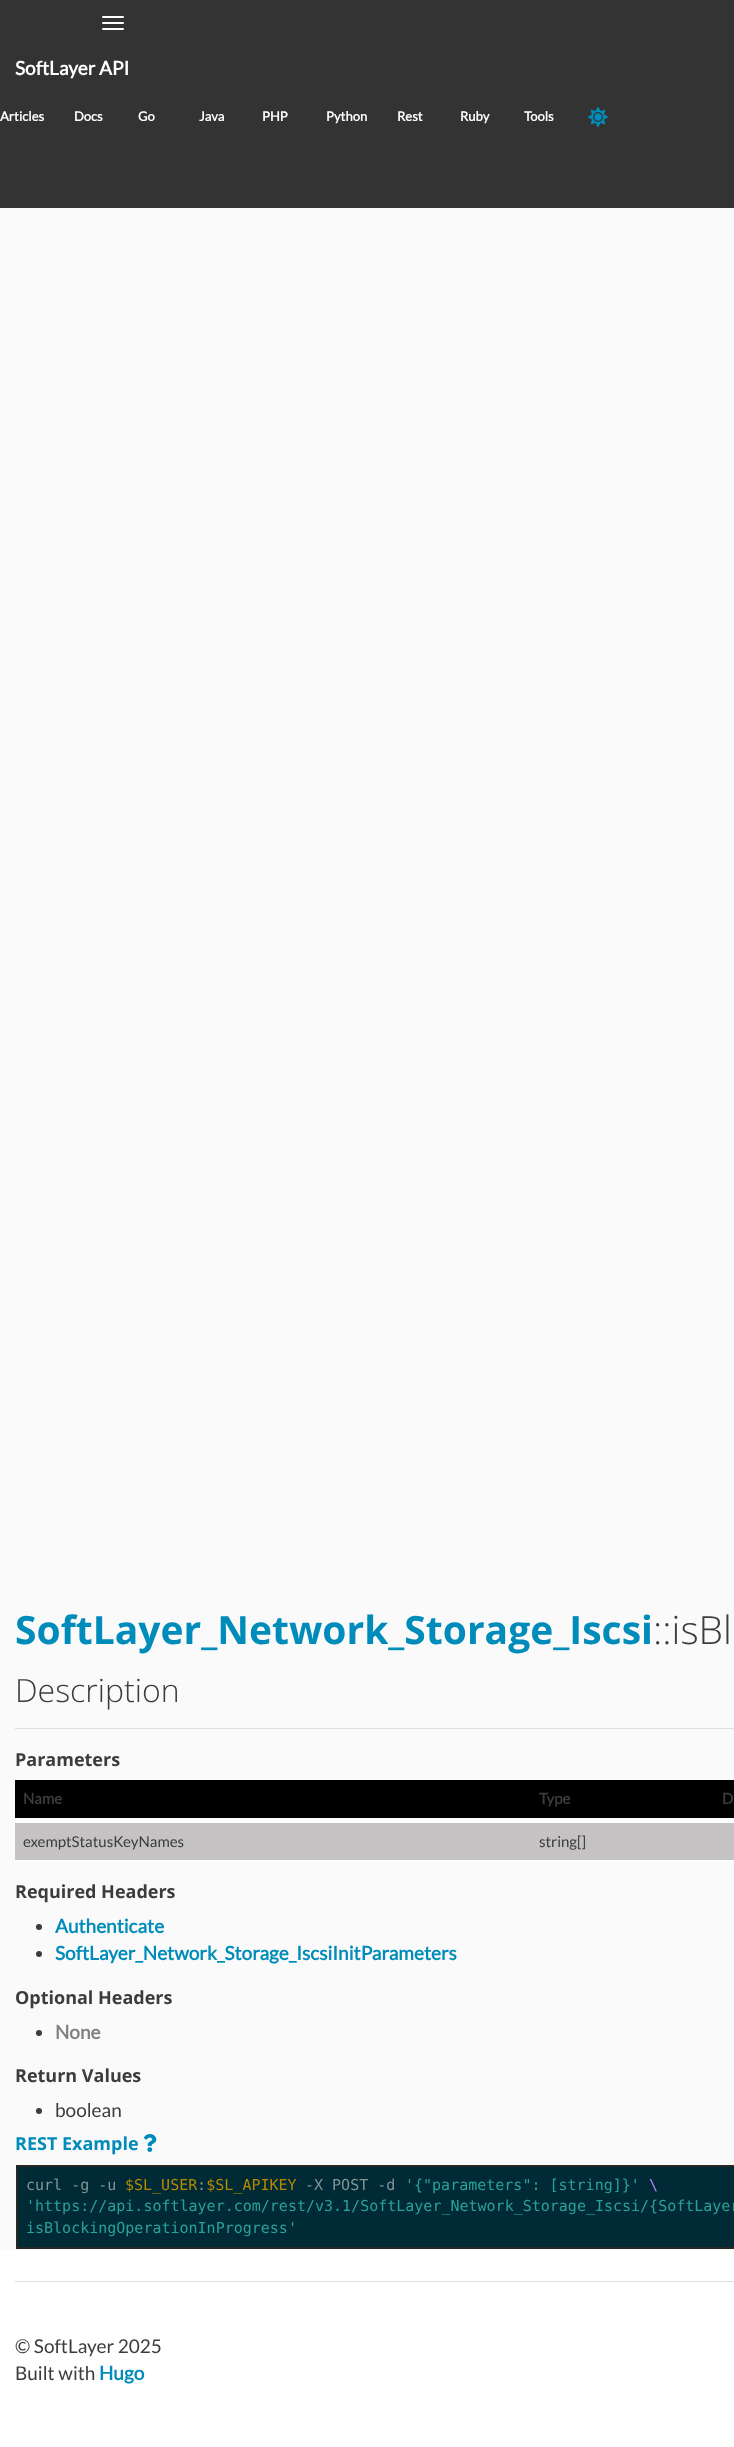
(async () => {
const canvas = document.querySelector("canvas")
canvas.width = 734
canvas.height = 2447
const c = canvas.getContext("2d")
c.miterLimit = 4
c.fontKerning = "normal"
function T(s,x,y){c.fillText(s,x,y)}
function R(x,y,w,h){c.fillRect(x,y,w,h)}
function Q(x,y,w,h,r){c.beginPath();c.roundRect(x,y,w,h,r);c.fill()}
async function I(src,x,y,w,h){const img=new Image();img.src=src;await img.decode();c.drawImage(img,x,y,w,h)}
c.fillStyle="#fff"
R(0,0,734,2447)
c.fillStyle="#333"
R(0,0,734,208)
c.fillStyle="#fff"
Q(102,16,22,2,1)
Q(102,22,22,2,1)
Q(102,28,22,2,1)
c.font="bold 19px Lato"
T("SoftLayer API",15,75)
c.font="bold 13px Lato"
T("Articles",0,121)
T("Docs",74,121)
T("Go",138,121)
T("Java",199,121)
T("PHP",262,121)
T("Python",326,121)
T("Rest",397,121)
T("Ruby",460,121)
T("Tools",524,121)
await I("1.png",588,107,20,20)
c.fillStyle="#fafafa"
R(0,208,734,2042)
c.font="bold 39px Open Sans"
c.fillStyle="#008cba"
T("SoftLayer_Network_Storage_Iscsi",15,1644)
c.font="300 39px Open Sans"
c.fillStyle="#3d3c3c"
T("::isBl",653,1644)
c.font="300 32px Open Sans"
T("Description",15,1702)
c.fillStyle="#ddd"
R(15,1728,719,1)
c.font="bold 18px Open Sans"
c.fillStyle="#3d3c3c"
T("Parameters",15,1766)
c.fillStyle="#000"
R(15,1780,719,38)
c.fillStyle="#fff"
R(13,1818,721,5)
c.font="bold 15px Lato"
c.fillStyle="#3d3c3c"
T("Name",23,1804)
T("Type",539,1804)
T("D",722,1804)
c.fillStyle="#c4c2c2"
R(15,1823,719,37)
c.font="15px Lato"
c.fillStyle="#3d3c3c"
T("exemptStatusKeyNames",23,1847)
T("string[]",539,1847)
c.fillStyle="#fff"
R(15,1860,719,1)
c.font="bold 18px Open Sans"
c.fillStyle="#3d3c3c"
T("Required Headers",15,1898)
c.beginPath()
c.arc(39,1927,3,0,7)
c.fill()
c.font="bold 19px Lato"
c.fillStyle="#008cba"
T("Authenticate",55,1933)
c.fillStyle="#3d3c3c"
c.beginPath()
c.arc(39,1954,3,0,7)
c.fill()
c.fillStyle="#008cba"
T("SoftLayer_Network_Storage_IscsiInitParameters",55,1960)
c.font="bold 18px Open Sans"
c.fillStyle="#3d3c3c"
T("Optional Headers",15,2004)
c.beginPath()
c.arc(39,2033,3,0,7)
c.fill()
c.font="bold 19px Lato"
c.fillStyle="#808080"
T("None",55,2039)
c.font="bold 18px Open Sans"
c.fillStyle="#3d3c3c"
T("Return Values",15,2082)
c.beginPath()
c.arc(39,2111,3,0,7)
c.fill()
c.font="19px Lato"
T("boolean",55,2117)
c.font="bold 18px Open Sans"
c.fillStyle="#008cba"
T("REST Example",15,2150)
await I("2.png",143,2134,14,18)
c.fillStyle="#272822"
R(16,2165,718,84)
c.fillStyle="#002b36"
R(18,2167,716,80)
c.font="15px DejaVu Sans Mono"
c.fillStyle="#839496"
T("curl -g -u",26,2190)
c.fillStyle="#b58900"
T("$SL_USER $SL_APIKEY",125,2190)
c.fillStyle="#839496"
T("-X POST -d",305,2190)
c.fillStyle="#2aa198"
T("'{\"parameters\": [string]}'",405,2190)
c.fillStyle="#ae81ff"
T("\\",649,2190)
c.fillStyle="#839496"
T(":",197,2190)
c.fillStyle="#2aa198"
T("'https://api.softlayer.com/rest/v3.1/SoftLayer_Network_Storage_Iscsi/{SoftLayer",26,2211)
T("isBlockingOperationInProgress'",26,2233)
c.fillStyle="#ddd"
R(15,2281,719,1)
c.font="19px Lato"
c.fillStyle="#3d3c3c"
T("© SoftLayer 2025",15,2353)
T("Built with",15,2380)
c.font="bold 19px Lato"
c.fillStyle="#008cba"
T("Hugo",99,2380)
})()
